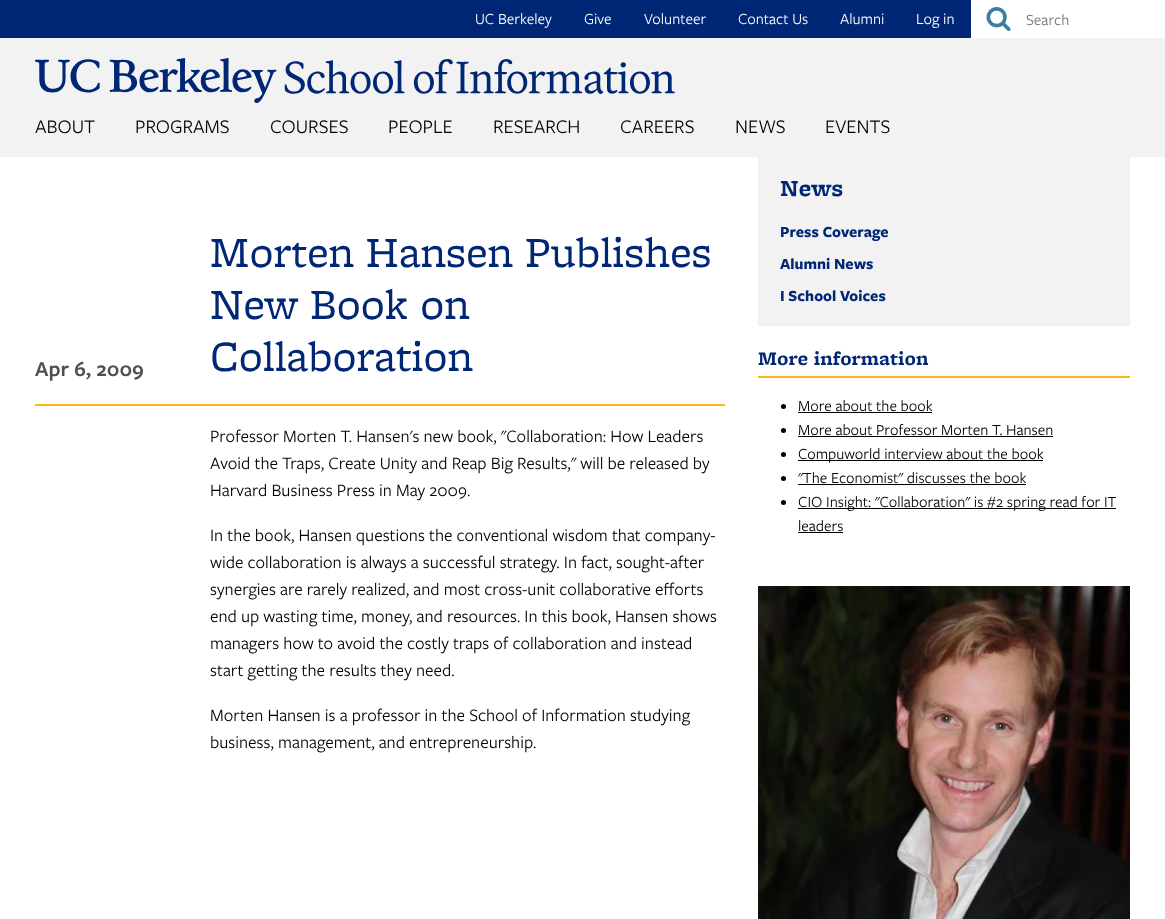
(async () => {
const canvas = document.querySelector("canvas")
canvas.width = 1165
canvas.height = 919
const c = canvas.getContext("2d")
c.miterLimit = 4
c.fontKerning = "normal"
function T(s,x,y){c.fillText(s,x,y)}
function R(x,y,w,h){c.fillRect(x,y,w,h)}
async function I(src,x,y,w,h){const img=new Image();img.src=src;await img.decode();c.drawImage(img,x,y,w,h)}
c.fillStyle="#fff"
R(0,0,1165,919)
c.fillStyle="#f2f2f2"
R(0,38,1165,119)
c.fillStyle="#002676"
R(0,0,971,38)
c.font="16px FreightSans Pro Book"
c.fillStyle="#fff"
T("UC Berkeley",475,24)
T("Give",584,24)
T("Volunteer",644,24)
T("Contact Us",738,24)
T("Alumni",840,24)
T("Log in",916,24)
await I("1.png",986,7,25,24)
c.fillStyle="#757575"
T("Search",1026,25)
await I("2.png",35,58,640,45)
c.font="20px FreightSans Pro Book"
c.fillStyle="#000"
T("ABOUT",35,133)
T("PROGRAMS",135,133)
T("COURSES",270,133)
T("PEOPLE",388,133)
T("RESEARCH",493,133)
T("CAREERS",620,133)
T("NEWS",735,133)
T("EVENTS",825,133)
c.fillStyle="#fdb515"
R(35,404,690,2)
c.font="600 22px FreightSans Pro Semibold"
c.fillStyle="#505050"
T("Apr 6, 2009",35,376)
c.font="45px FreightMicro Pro"
c.fillStyle="#002676"
T("Morten Hansen Publishes",210,267)
T("New Book on",210,319)
T("Collaboration",210,371)
c.font="18px FreightSans Pro Book"
c.fillStyle="#000"
T("Professor Morten T. Hansen's new book, \"Collaboration: How Leaders",210,442)
T("Avoid the Traps, Create Unity and Reap Big Results,\" will be released by",210,469)
T("Harvard Business Press in May 2009.",210,496)
T("In the book, Hansen questions the conventional wisdom that company-",210,541)
T("wide collaboration is always a successful strategy. In fact, sought-after",210,568)
T("synergies are rarely realized, and most cross-unit collaborative efforts",210,595)
T("end up wasting time, money, and resources. In this book, Hansen shows",210,622)
T("managers how to avoid the costly traps of collaboration and instead",210,649)
T("start getting the results they need.",210,676)
T("Morten Hansen is a professor in the School of Information studying",210,721)
T("business, management, and entrepreneurship.",210,748)
c.fillStyle="#f2f2f2"
R(758,157,372,169)
c.font="bold 24px FreightMicro Pro"
c.fillStyle="#002676"
T("News",780,196)
c.font="bold 16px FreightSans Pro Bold"
T("Press Coverage",780,237)
T("Alumni News",780,269)
T("I School Voices",780,301)
c.fillStyle="#fdb515"
R(758,376,372,2)
c.font="bold 20px FreightMicro Pro"
c.fillStyle="#002676"
T("More information",758,365)
c.fillStyle="#000"
c.beginPath()
c.arc(783.5,406.5,2.5,0,7)
c.fill()
c.font="16px FreightSans Pro Book"
T("More about the book",798,411)
R(798,412,134,1)
c.beginPath()
c.arc(783.5,430.5,2.5,0,7)
c.fill()
T("More about Professor Morten T. Hansen",798,435)
R(798,436,255,1)
c.beginPath()
c.arc(783.5,454.5,2.5,0,7)
c.fill()
R(798,460,245,1)
T("Compuworld interview about the book",798,459)
c.beginPath()
c.arc(783.5,478.5,2.5,0,7)
c.fill()
T("\"The Economist\" discusses the book",798,483)
R(798,484,228,1)
c.beginPath()
c.arc(783.5,502.5,2.5,0,7)
c.fill()
R(798,508,318,1)
T("CIO Insight: \"Collaboration\" is #2 spring read for IT",798,507)
T("leaders",798,531)
R(798,532,45,1)
await I("3.png",758,586,372,333)
})()
